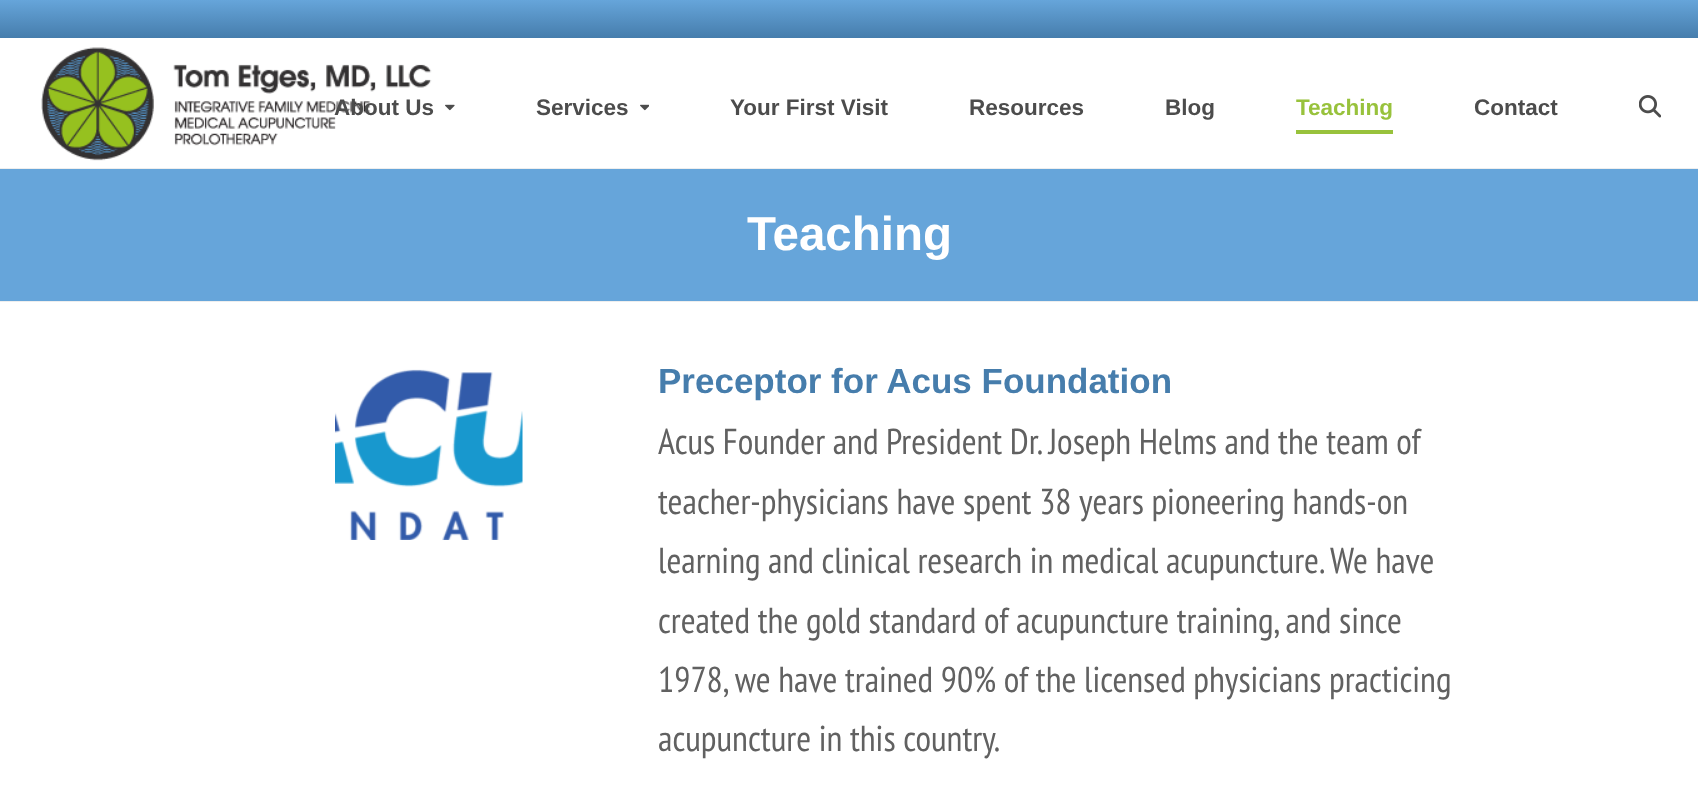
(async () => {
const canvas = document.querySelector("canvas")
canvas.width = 1698
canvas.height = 789
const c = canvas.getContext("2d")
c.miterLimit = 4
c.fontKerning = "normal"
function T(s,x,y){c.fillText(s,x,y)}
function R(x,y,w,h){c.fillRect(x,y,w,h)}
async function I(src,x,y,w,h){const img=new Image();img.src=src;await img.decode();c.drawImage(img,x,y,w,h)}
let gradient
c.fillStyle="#fff"
R(0,0,1698,789)
gradient = c.createLinearGradient(849,0,849,38)
gradient.addColorStop(0,"#66a5da")
gradient.addColorStop(1,"#467dac")
c.fillStyle = gradient
R(0,0,1698,38)
await I("1.png",41,47,391,114)
c.font="bold 22.5px Liberation Sans"
c.fillStyle="#4c4c4c"
T("About Us",334,115)
await I("2.png",445,104,10,7)
T("Services",536,115)
await I("3.png",640,104,9,7)
T("Your First Visit",730,115)
T("Resources",969,115)
T("Blog",1165,115)
c.fillStyle="#98c23c"
T("Teaching",1296,115)
R(1296,130,97,4)
c.fillStyle="#4c4c4c"
T("Contact",1474,115)
await I("4.png",1639,95,22,23)
c.fillStyle="#66a5da"
R(0,169,1698,132)
c.fillStyle="#eee"
R(0,168,1698,1)
R(0,301,1698,1)
c.font="bold 47.5px Liberation Sans"
c.fillStyle="#fff"
T("Teaching",747,250)
await I("5.png",335,369,188,171)
c.font="bold 35px Liberation Sans"
c.fillStyle="#467dac"
T("Preceptor for Acus Foundation",658,393)
c.font="36px PT Sans Narrow"
c.fillStyle="#616161"
T("Acus Founder and President Dr. Joseph Helms and the team of",658,454)
T("teacher-physicians have spent 38 years pioneering hands-on",658,514)
T("learning and clinical research in medical acupuncture. We have",658,573)
T("created the gold standard of acupuncture training, and since",658,633)
T("1978, we have trained 90% of the licensed physicians practicing",658,692)
T("acupuncture in this country.",658,751)
})()
